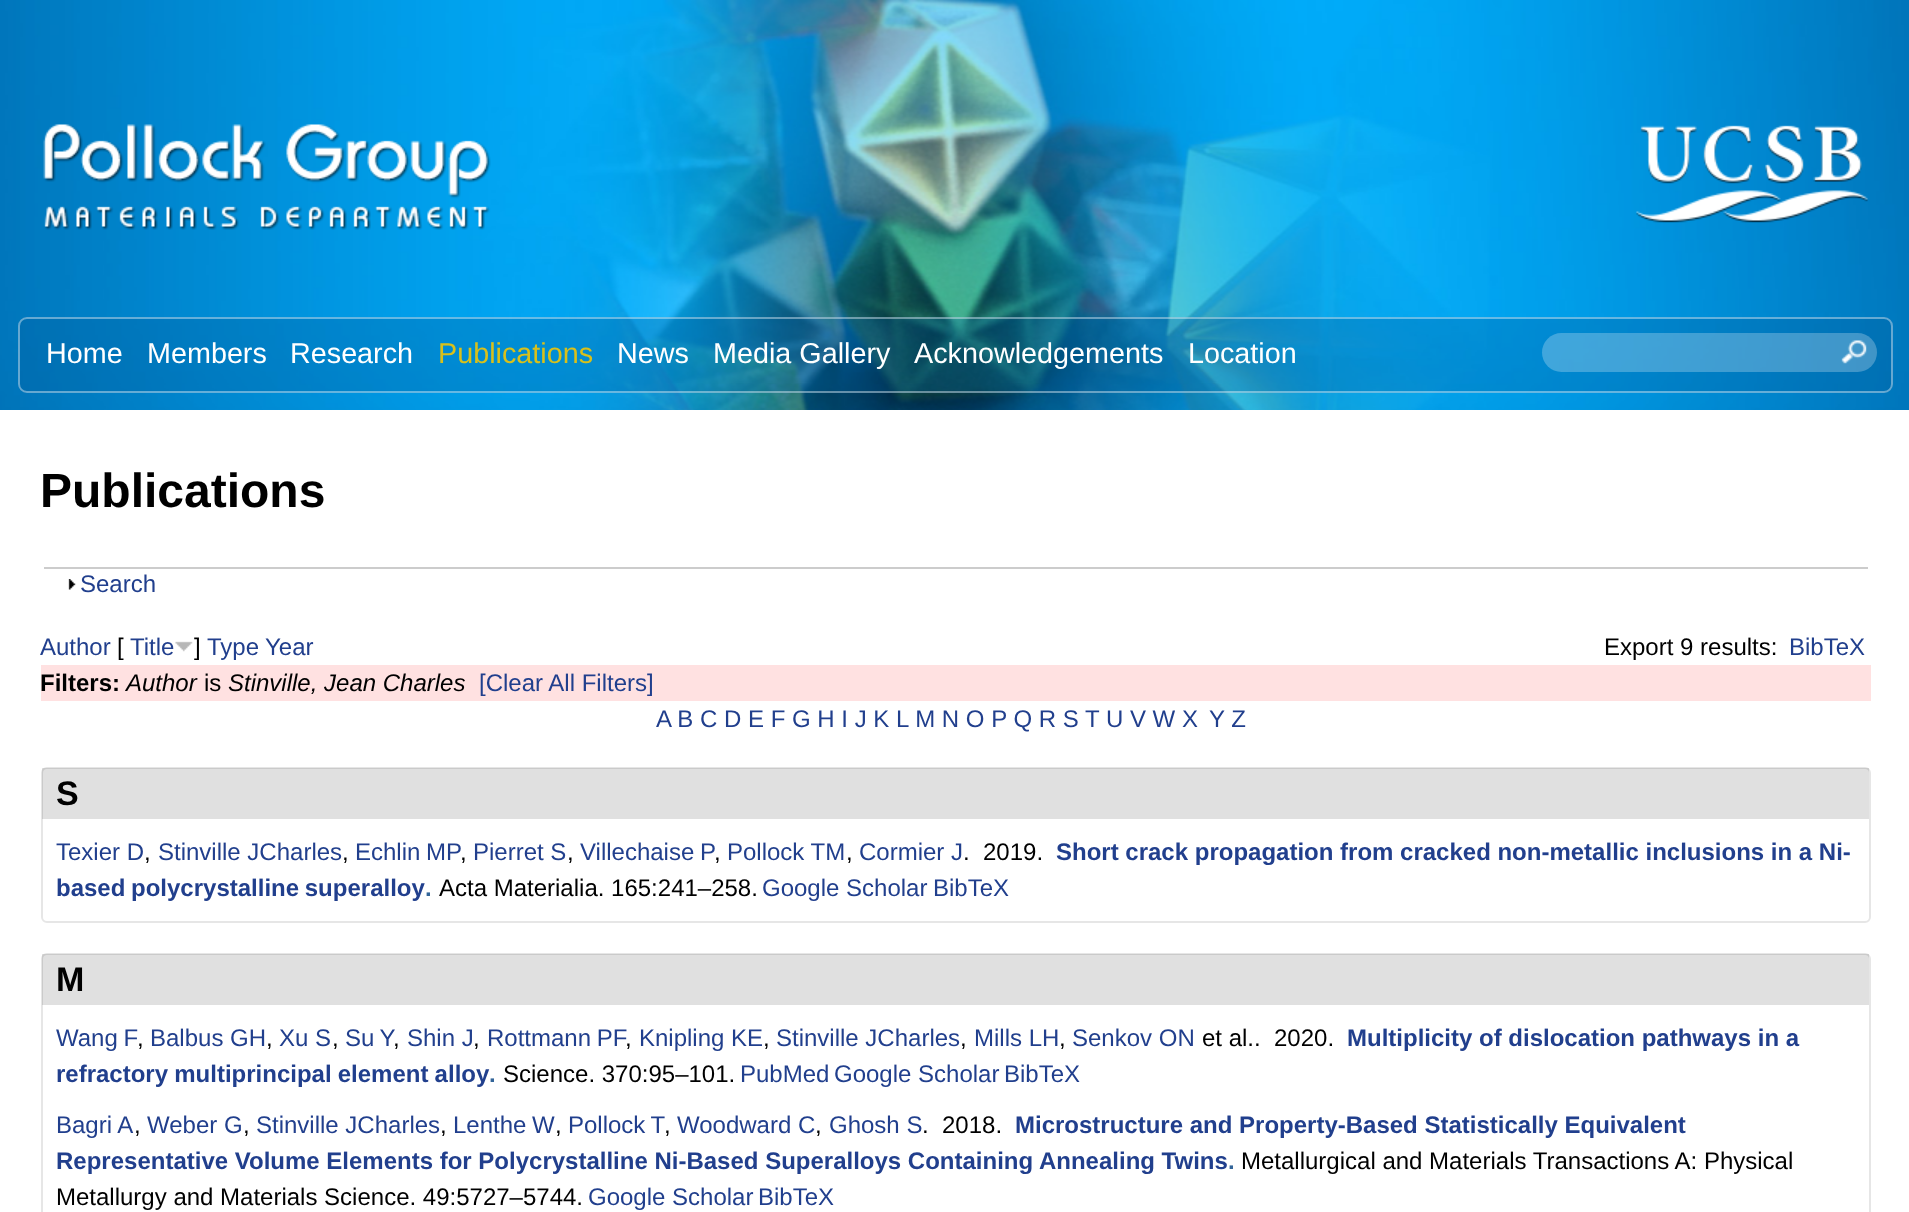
(async () => {
const canvas = document.querySelector("canvas")
canvas.width = 1909
canvas.height = 1212
const c = canvas.getContext("2d")
c.miterLimit = 4
c.fontKerning = "normal"
function T(s,x,y){c.fillText(s,x,y)}
function R(x,y,w,h){c.fillRect(x,y,w,h)}
function Q(x,y,w,h,r){c.beginPath();c.roundRect(x,y,w,h,r);c.fill()}
async function I(src,x,y,w,h){const img=new Image();img.src=src;await img.decode();c.drawImage(img,x,y,w,h)}
c.fillStyle="#fff"
R(0,0,1909,1212)
await I("1.png",0,0,1909,410)
await I("2.png",43,124,448,106)
await I("3.png",1636,125,232,98)
c.fillStyle="#005c9d4d"
Q(18,317,1875,76,9)
c.beginPath()
c.roundRect(19,318,1873,74,8)
c.strokeStyle="#ffffff66"
c.lineWidth=2
c.stroke()
c.font="28.75px Liberation Sans"
c.fillStyle="#fff"
T("Home",46,363)
T("Members",147,363)
T("Research",290,363)
c.fillStyle="#d8c01b"
T("Publications",438,363)
c.fillStyle="#fff"
T("News",617,363)
T("Media Gallery",713,363)
T("Acknowledgements",914,363)
T("Location",1188,363)
c.fillStyle="#ffffff40"
Q(1542,333,335,39,19.5)
await I("4.png",1841,340,26,24)
c.font="bold 48px Liberation Sans"
c.fillStyle="#000"
T("Publications",40,507)
c.fillStyle="#ccc"
R(44,567,1824,2)
await I("5.png",68,579,8,11)
c.font="24px Liberation Sans"
c.fillStyle="#213f8d"
T("Search",80,592)
T("Author",40,655)
c.fillStyle="#000"
T("[",117,655)
c.fillStyle="#213f8d"
T("Title",130,655)
await I("6.png",175,641,18,11)
c.fillStyle="#000"
T("]",194,655)
c.fillStyle="#213f8d"
T("Type",207,655)
T("Year",265,655)
c.fillStyle="#000"
T("Export 9 results:",1604,655)
c.fillStyle="#213f8d"
T("BibTeX",1789,655)
c.fillStyle="#ffe1e1"
R(41,665,1830,36)
c.font="bold 24px Liberation Sans"
c.fillStyle="#000"
T("Filters:",40,691)
c.font="italic 24px Liberation Sans"
T("Author",126,691)
c.font="24px Liberation Sans"
T("is",204,691)
c.font="italic 24px Liberation Sans"
T("Stinville, Jean Charles",228,691)
c.font="24px Liberation Sans"
c.fillStyle="#213f8d"
T("[Clear All Filters]",479,691)
T("A B C D E F G H I J K L M N O P Q R S T U V W X",656,727)
T("Y Z",1209,727)
c.beginPath()
c.roundRect(42,768,1828,154,5)
c.strokeStyle="#e6e6e6"
c.stroke()
c.fillStyle="#0000001f"
R(42,768,1827,51)
c.font="bold 34px Liberation Sans"
c.fillStyle="#000"
T("S",56,805)
c.font="24px Liberation Sans"
c.fillStyle="#213f8d"
T("Texier D",56,860)
c.fillStyle="#000"
T(",",144,860)
c.fillStyle="#213f8d"
T("Stinville JCharles",158,860)
c.fillStyle="#000"
T(",",342,860)
c.wordSpacing="-1px"
c.fillStyle="#213f8d"
T("Echlin MP",355,860)
c.wordSpacing="0px"
c.fillStyle="#000"
T(",",460,860)
c.fillStyle="#213f8d"
T("Pierret S",473,860)
c.fillStyle="#000"
T(",",567,860)
c.wordSpacing="-1px"
c.fillStyle="#213f8d"
T("Villechaise P",580,860)
c.wordSpacing="0px"
c.fillStyle="#000"
T(",",714,860)
c.fillStyle="#213f8d"
T("Pollock TM",727,860)
c.fillStyle="#000"
T(",",846,860)
c.fillStyle="#213f8d"
T("Cormier J",859,860)
c.fillStyle="#000"
T(".",963,860)
T("2019.",983,860)
c.font="bold 24px Liberation Sans"
c.fillStyle="#213f8d"
T("Short crack propagation from cracked non-metallic inclusions in a Ni-",1056,860)
c.wordSpacing="-1px"
T("based polycrystalline superalloy",56,896)
c.wordSpacing="0px"
c.fillStyle="#336599"
T(".",425,896)
c.font="24px Liberation Sans"
c.fillStyle="#000"
T("Acta Materialia. 165:241–258.",439,896)
c.fillStyle="#213f8d"
T("Google Scholar",762,896)
T("BibTeX",933,896)
c.beginPath()
c.roundRect(42,954,1828,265,5)
c.stroke()
c.fillStyle="#0000001f"
R(42,954,1827,51)
c.font="bold 34px Liberation Sans"
c.fillStyle="#000"
T("M",56,991)
c.wordSpacing="-1px"
c.font="24px Liberation Sans"
c.fillStyle="#213f8d"
T("Wang F",56,1046)
c.wordSpacing="0px"
c.fillStyle="#000"
T(",",137,1046)
c.fillStyle="#213f8d"
T("Balbus GH",150,1046)
c.fillStyle="#000"
T(",",266,1046)
c.fillStyle="#213f8d"
T("Xu S",279,1046)
c.fillStyle="#000"
T(",",332,1046)
c.wordSpacing="-1px"
c.fillStyle="#213f8d"
T("Su Y",345,1046)
c.wordSpacing="0px"
c.fillStyle="#000"
T(",",393,1046)
c.fillStyle="#213f8d"
T("Shin J",407,1046)
c.fillStyle="#000"
T(",",473,1046)
c.wordSpacing="-1px"
c.fillStyle="#213f8d"
T("Rottmann PF",487,1046)
c.wordSpacing="0px"
c.fillStyle="#000"
T(",",625,1046)
c.fillStyle="#213f8d"
T("Knipling KE",639,1046)
c.fillStyle="#000"
T(",",763,1046)
c.fillStyle="#213f8d"
T("Stinville JCharles",776,1046)
c.fillStyle="#000"
T(",",960,1046)
c.fillStyle="#213f8d"
T("Mills LH",974,1046)
c.fillStyle="#000"
T(",",1059,1046)
c.fillStyle="#213f8d"
T("Senkov ON",1072,1046)
c.fillStyle="#000"
T("et al..",1202,1046)
T("2020.",1274,1046)
c.font="bold 24px Liberation Sans"
c.fillStyle="#213f8d"
T("Multiplicity of dislocation pathways in a",1347,1046)
c.wordSpacing="-0.5px"
T("refractory multiprincipal element alloy",56,1082)
c.wordSpacing="0px"
c.fillStyle="#336599"
T(".",489,1082)
c.font="24px Liberation Sans"
c.fillStyle="#000"
T("Science. 370:95–101.",503,1082)
c.fillStyle="#213f8d"
T("PubMed",740,1082)
T("Google Scholar",834,1082)
T("BibTeX",1004,1082)
T("Bagri A",56,1133)
c.fillStyle="#000"
T(",",134,1133)
c.fillStyle="#213f8d"
T("Weber G",147,1133)
c.fillStyle="#000"
T(",",243,1133)
c.fillStyle="#213f8d"
T("Stinville JCharles",256,1133)
c.fillStyle="#000"
T(",",440,1133)
c.wordSpacing="-1px"
c.fillStyle="#213f8d"
T("Lenthe W",453,1133)
c.wordSpacing="0px"
c.fillStyle="#000"
T(",",555,1133)
c.wordSpacing="-1px"
c.fillStyle="#213f8d"
T("Pollock T",568,1133)
c.wordSpacing="0px"
c.fillStyle="#000"
T(",",664,1133)
c.fillStyle="#213f8d"
T("Woodward C",677,1133)
c.fillStyle="#000"
T(",",815,1133)
c.fillStyle="#213f8d"
T("Ghosh S",829,1133)
c.fillStyle="#000"
T(".",922,1133)
T("2018.",942,1133)
c.font="bold 24px Liberation Sans"
c.fillStyle="#213f8d"
T("Microstructure and Property-Based Statistically Equivalent",1015,1133)
T("Representative Volume Elements for Polycrystalline Ni-Based Superalloys Containing Annealing Twins",56,1169)
c.fillStyle="#336599"
T(".",1228,1169)
c.font="24px Liberation Sans"
c.fillStyle="#000"
T("Metallurgical and Materials Transactions A: Physical",1241,1169)
T("Metallurgy and Materials Science. 49:5727–5744.",56,1205)
c.fillStyle="#213f8d"
T("Google Scholar",588,1205)
T("BibTeX",758,1205)
})()
